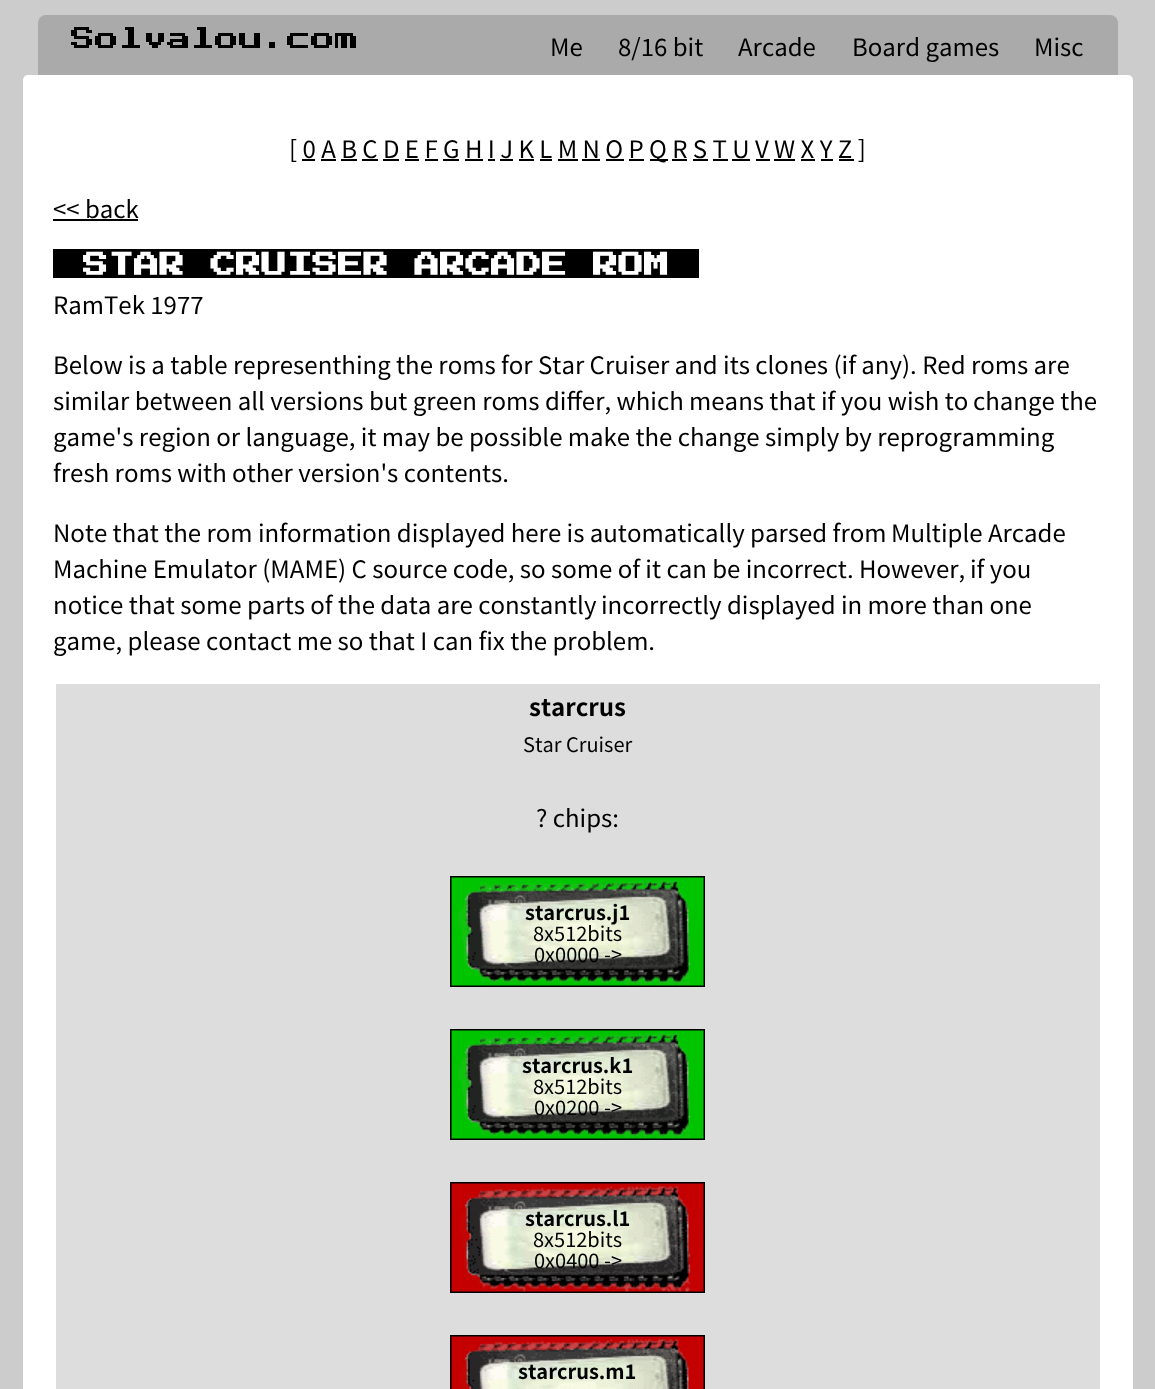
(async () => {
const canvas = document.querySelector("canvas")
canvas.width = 1155
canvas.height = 1389
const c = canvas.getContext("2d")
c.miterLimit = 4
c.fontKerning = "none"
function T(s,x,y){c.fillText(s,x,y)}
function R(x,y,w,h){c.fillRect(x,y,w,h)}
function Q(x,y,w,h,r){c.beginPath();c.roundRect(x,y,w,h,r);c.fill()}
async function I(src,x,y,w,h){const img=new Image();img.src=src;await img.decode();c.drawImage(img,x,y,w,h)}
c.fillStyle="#ccc"
R(0,0,1155,1389)
c.fillStyle="#aaa"
c.beginPath()
c.roundRect(38,15,1080,60,[8,8,0,0])
c.fill()
c.font="24px 'Press Start 2P'"
c.fillStyle="#000"
T("Solvalou.com",71,51)
c.font="24px Noto Sans TC"
T("Me",550,56)
T("8/16 bit",618,56)
T("Arcade",738,56)
T("Board games",852,56)
T("Misc",1034,56)
c.fillStyle="#fff"
Q(23,75,1110,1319,5)
c.fillStyle="#000"
T("[ 0 A B C D E F G H I J K L M N O P",289,158)
R(650,159,18,2)
T("Q R S T U V W X Y Z ]",649,158)
R(302,159,13,2)
R(321,159,15,2)
R(341,159,16,2)
R(362,159,16,2)
R(383,159,16,2)
R(405,159,14,2)
R(425,159,13,2)
R(443,159,16,2)
R(465,159,18,2)
R(488,159,7,2)
R(500,159,13,2)
R(519,159,15,2)
R(540,159,12,2)
R(558,159,20,2)
R(582,159,18,2)
R(606,159,18,2)
R(629,159,15,2)
R(672,159,15,2)
R(693,159,15,2)
R(713,159,15,2)
R(732,159,18,2)
R(756,159,14,2)
R(774,159,21,2)
R(801,159,14,2)
R(821,159,12,2)
R(839,159,15,2)
T("<< back",53,218)
R(53,219,85,2)
R(53,249,646,29)
c.font="bold 25.5px 'Press Start 2P'"
c.fillStyle="#fff"
T("STAR CRUISER ARCADE ROM",83,278)
c.font="24px Noto Sans TC"
c.fillStyle="#000"
T("RamTek 1977",53,314)
T("Below is a table representhing the roms for Star Cruiser and its clones (if any). Red roms are",53,374)
T("similar between all versions but green roms differ, which means that if you wish to",53,410)
T("change the",973,410)
T("game's region or language, it may be possible make the change simply by reprogramming",53,446)
T("fresh roms with other version's contents.",53,482)
T("Note that the rom information displayed here is automatically parsed from",53,542)
T("Multiple Arcade",891,542)
T("Machine Emulator (MAME) C source code, so some of it can be incorrect. However,",53,578)
T("if you",970,578)
T("notice that some parts of the data are constantly",53,614)
T("incorrectly displayed in more than one",601,614)
T("game, please contact me so that I can fix the problem.",53,650)
c.fillStyle="#ddd"
R(56,684,1044,705)
c.font="bold 24px Noto Sans TC"
c.fillStyle="#000"
T("starcrus",529,716)
c.font="20px Noto Sans TC"
T("Star Cruiser",523,752)
c.font="24px Noto Sans TC"
T("? chips:",536,827)
c.fillStyle="#00c400"
R(451,877,253,109)
await I("1.png",450,876,255,111)
c.font="bold 20px Noto Sans TC"
c.fillStyle="#000"
T("starcrus.j1",525,920)
c.font="20px Noto Sans TC"
T("8x512bits",533,941)
T("0x0000 ->",534,962)
c.fillStyle="#00c400"
R(451,1030,253,109)
await I("1.png",450,1029,255,111)
c.font="bold 20px Noto Sans TC"
c.fillStyle="#000"
T("starcrus.k1",522,1073)
c.font="20px Noto Sans TC"
T("8x512bits",533,1094)
T("0x0200 ->",534,1115)
c.fillStyle="#c40000"
R(451,1183,253,109)
await I("2.png",450,1182,255,111)
c.font="bold 20px Noto Sans TC"
c.fillStyle="#000"
T("starcrus.l1",525,1226)
c.font="20px Noto Sans TC"
T("8x512bits",533,1247)
T("0x0400 ->",534,1268)
c.fillStyle="#c40000"
R(451,1336,253,53)
await I("3.png",450,1335,255,54)
c.font="bold 20px Noto Sans TC"
c.fillStyle="#000"
T("starcrus.m1",518,1379)
})()
